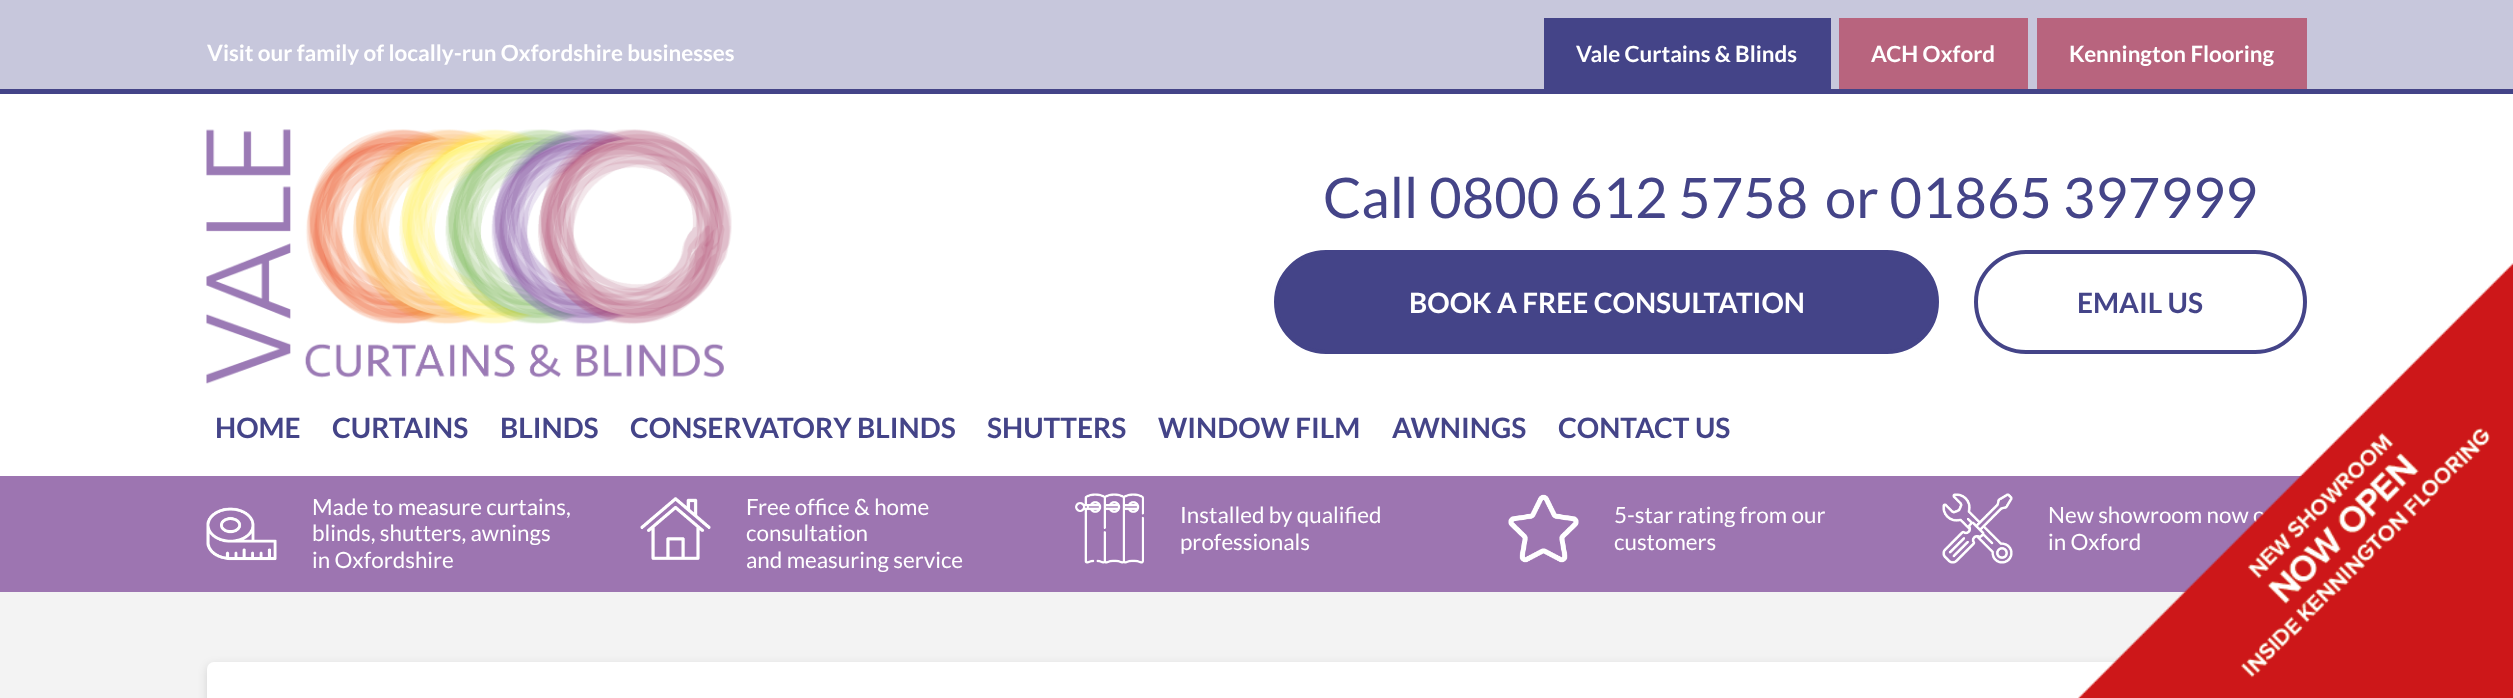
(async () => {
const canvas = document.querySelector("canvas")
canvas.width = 2513
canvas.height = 698
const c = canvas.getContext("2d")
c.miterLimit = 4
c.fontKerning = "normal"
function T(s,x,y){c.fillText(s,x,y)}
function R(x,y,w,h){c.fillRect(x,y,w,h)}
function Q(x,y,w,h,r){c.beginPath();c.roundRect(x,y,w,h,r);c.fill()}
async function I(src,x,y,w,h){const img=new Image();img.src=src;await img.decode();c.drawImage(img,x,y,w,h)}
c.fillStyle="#f3f3f3"
R(0,0,2513,698)
c.fillStyle="#fff"
R(0,94,2513,382)
c.fillStyle="#c7c7dc"
R(0,0,2513,89)
c.fillStyle="#448"
R(0,89,2513,5)
c.font="bold 22.4px Lato"
c.fillStyle="#fff"
T("Visit our family of locally-run Oxfordshire businesses",207,61)
c.fillStyle="#448"
R(1544,18,287,71)
c.fillStyle="#fff"
T("Vale Curtains & Blinds",1576,62)
c.fillStyle="#b8647e"
R(1839,18,189,71)
c.fillStyle="#fff"
T("ACH Oxford",1871,62)
c.fillStyle="#b8647e"
R(2037,18,270,71)
c.fillStyle="#fff"
T("Kennington Flooring",2069,62)
await I("1.png",206,129,526,255)
c.font="56px Lato"
c.fillStyle="#448"
T("Call 0800 612 5758",1323,218)
T("or 01865 397999",1825,218)
c.beginPath()
c.roundRect(1276,252,661,100,50)
c.fill()
c.strokeStyle="#448"
c.lineWidth=4
c.stroke()
c.font="bold 28px Lato"
c.fillStyle="#fff"
T("BOOK A FREE CONSULTATION",1409,313)
c.beginPath()
c.roundRect(1976,252,329,100,50)
c.stroke()
c.fillStyle="#448"
T("EMAIL US",2077,313)
T("HOME",215,438)
T("CURTAINS",332,438)
T("BLINDS",500,438)
T("CONSERVATORY BLINDS",630,438)
T("SHUTTERS",987,438)
T("WINDOW FILM",1158,438)
T("AWNINGS",1392,438)
T("CONTACT US",1558,438)
c.fillStyle="#9d75b1"
R(0,476,2302,116)
await I("2.png",206,507,71,54)
c.font="22.4px Lato"
c.fillStyle="#fff"
T("Made to measure curtains,",312,515)
T("blinds, shutters, awnings",312,541)
T("in Oxfordshire",312,568)
await I("3.png",640,497,71,63)
T("Free office & home",746,515)
T("consultation",746,541)
T("and measuring service",746,568)
await I("4.png",1075,493,69,71)
T("Installed by qualified",1180,523)
T("professionals",1180,550)
await I("5.png",1508,494,71,69)
T("5-star rating from our",1614,523)
T("customers",1614,550)
await I("6.png",1942,493,71,71)
T("New showroom now o",2048,523)
T("in Oxford",2048,550)
c.fillStyle="#00000021"
c.filter="blur(5px)"
c.beginPath()
c.roundRect(207,665,2100,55,7)
c.fill()
c.filter="none"
c.fillStyle="#fff"
Q(207,662,2100,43,7)
await I("7.png",2078,263,435,435)
})()
